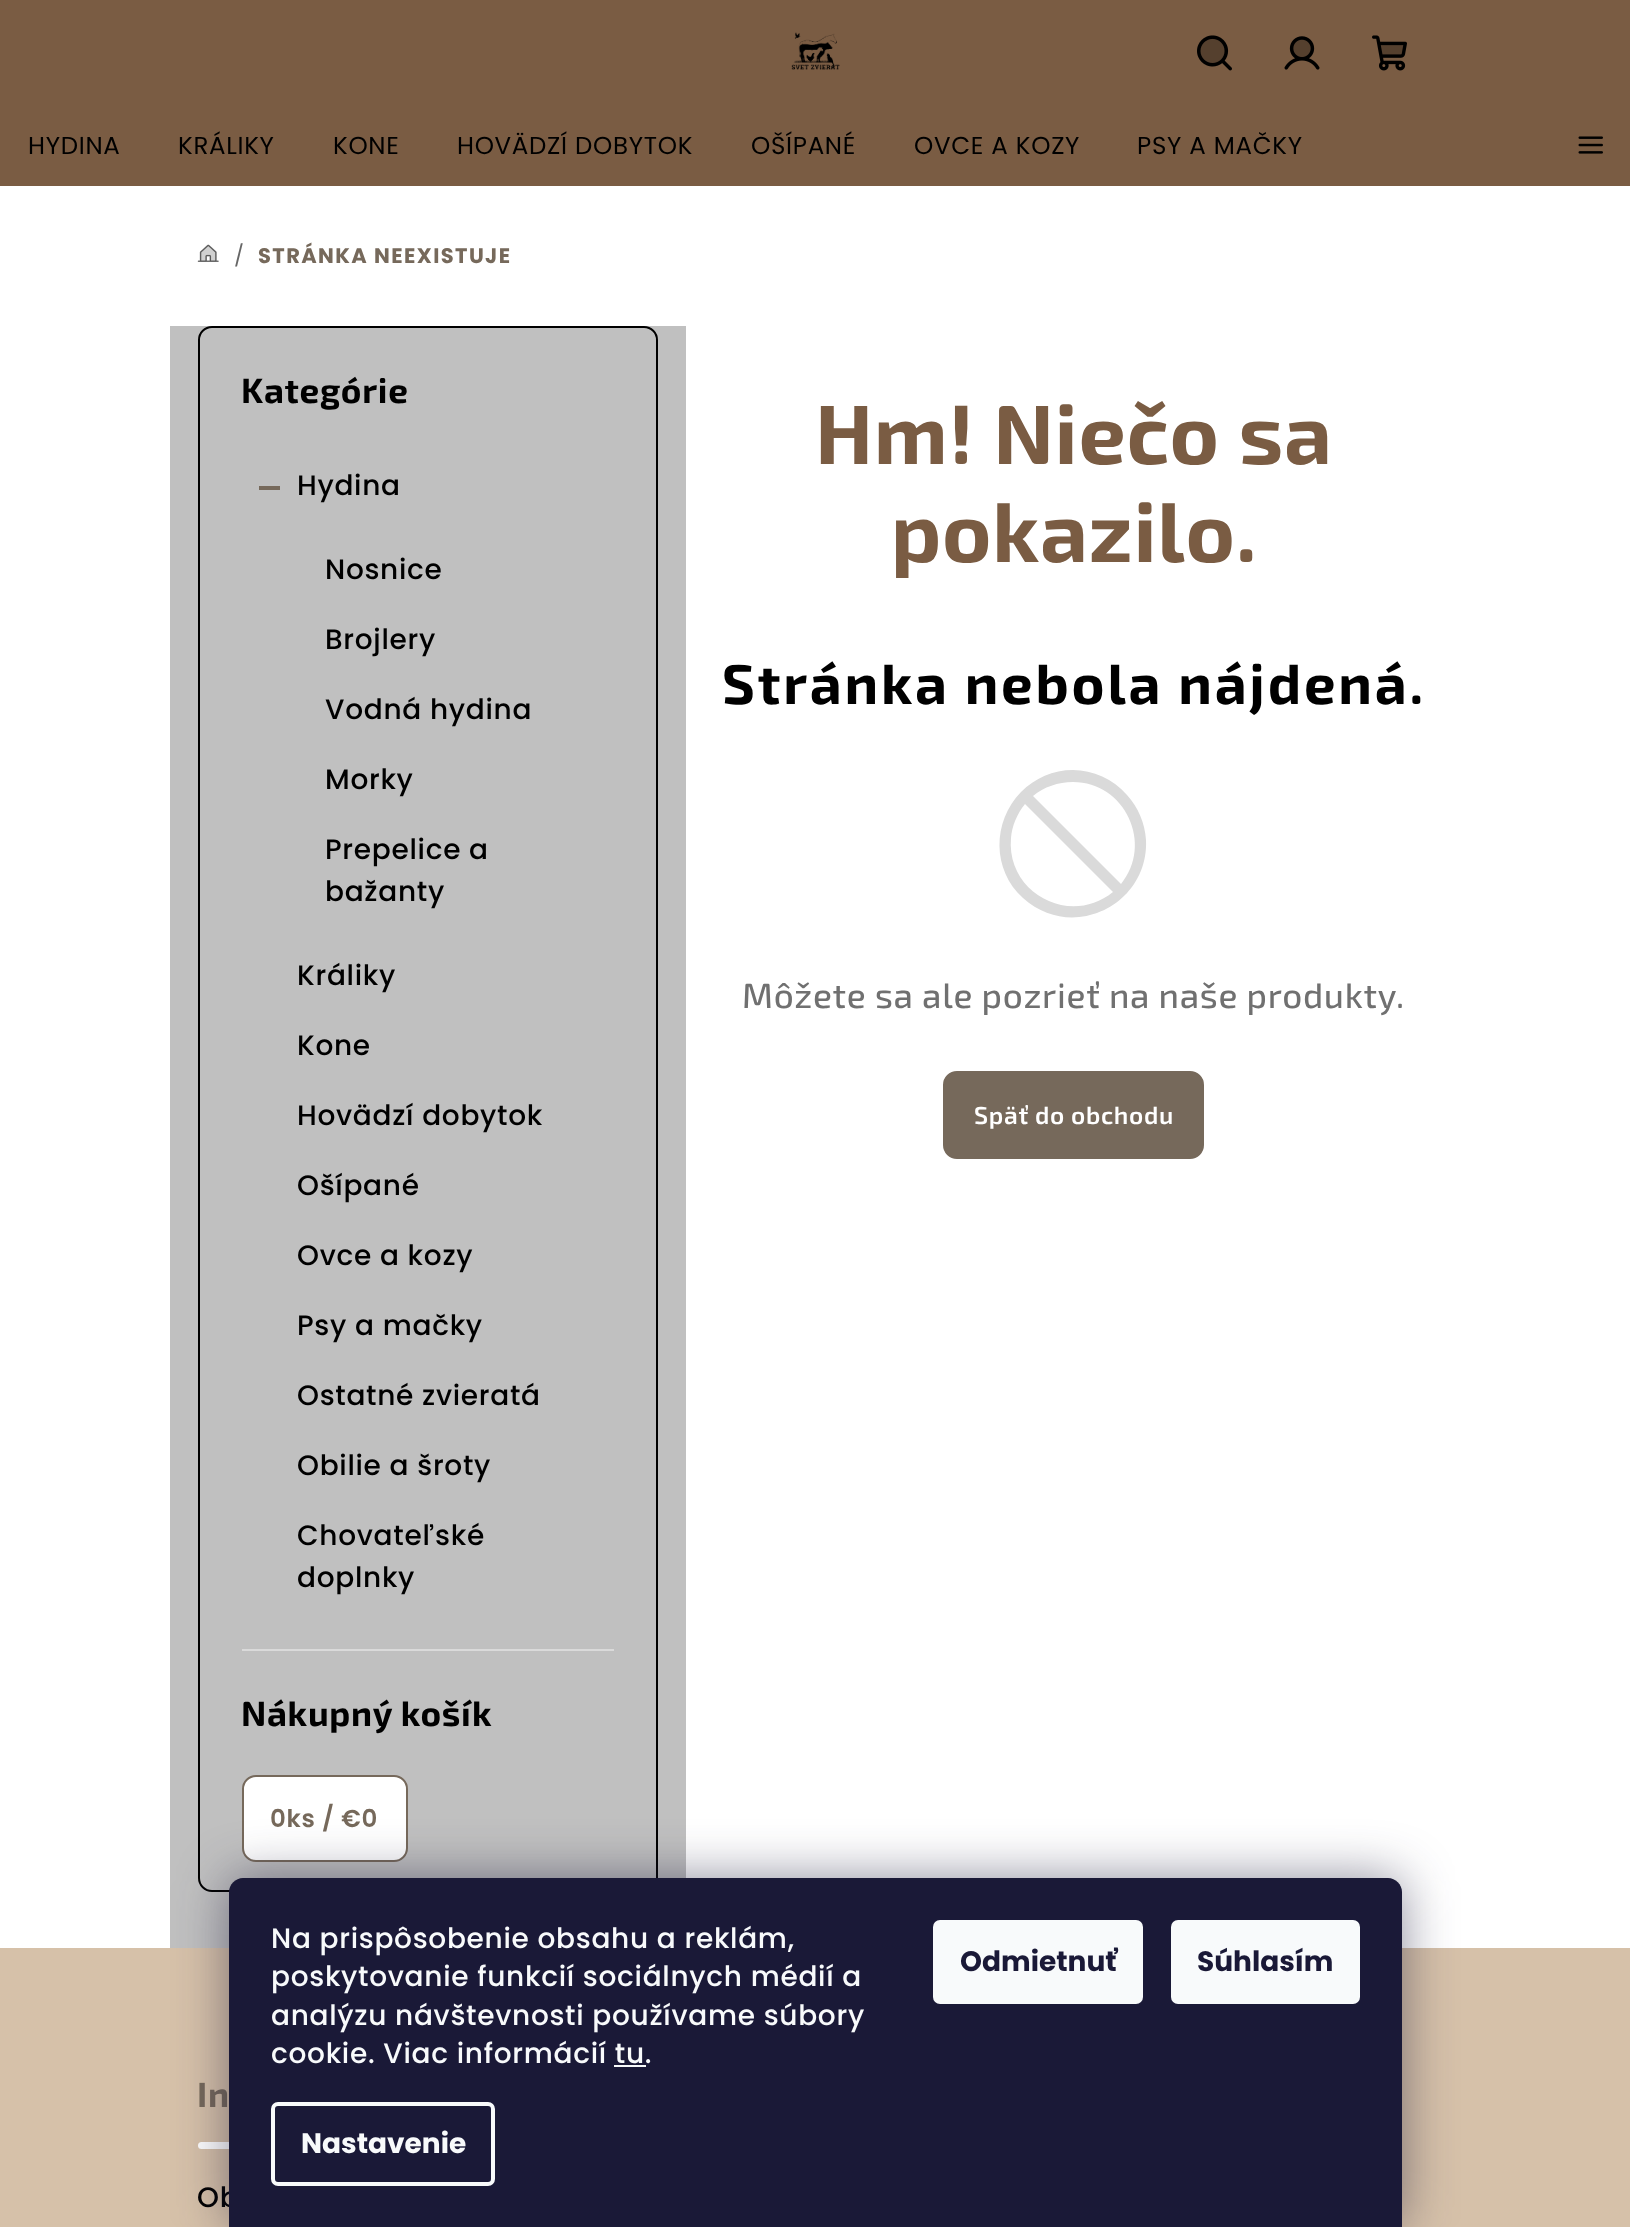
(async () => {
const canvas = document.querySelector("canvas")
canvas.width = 1630
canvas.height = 2227
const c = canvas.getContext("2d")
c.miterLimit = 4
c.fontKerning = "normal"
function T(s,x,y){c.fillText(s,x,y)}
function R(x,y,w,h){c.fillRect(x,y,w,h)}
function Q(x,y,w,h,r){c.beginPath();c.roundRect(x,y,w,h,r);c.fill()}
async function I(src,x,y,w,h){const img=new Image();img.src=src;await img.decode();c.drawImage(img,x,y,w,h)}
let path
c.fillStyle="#fff"
R(0,0,1630,2227)
c.fillStyle="#7a5c43"
R(0,0,1630,186)
await I("1.png",791,32,49,38)
await I("2.png",1197,35,35,36)
c.fillStyle="#0000004d"
path = new Path2D("M1212.5 65c18 0 18-28 0-28c-3 0-6 1-8 3c-10.5 8-5 25 8 25z")
c.fill(path)
await I("3.png",1284,36,36,34)
path = new Path2D("M1302 59c13.5 0 13.5-21 0-21c-13.5 0-13.5 21 0 21z")
c.fill(path)
await I("4.png",1372,35,35,36)
path = new Path2D("M1381 56h16.5c4.5 0 5.5 .5 6-3.5l2-9h-27z")
c.fill(path)
c.letterSpacing="0.7px"
c.font="24.5px Poppins"
c.fillStyle="#000"
T("HYDINA",28,154)
T("KRÁLIKY",178,154)
T("KONE",333,154)
T("HOVÄDZÍ DOBYTOK",457,154)
T("OŠÍPANÉ",751,154)
T("OVCE A KOZY",914,154)
T("PSY A MAČKY",1137,154)
await I("5.png",1578,136,25,18)
await I("6.png",197,244,22,18)
await I("7.png",200,245,16,17)
c.letterSpacing="1.4px"
c.font="21px Poppins"
c.fillStyle="#666"
T("/",234,263)
c.font="bold 21px Poppins"
c.fillStyle="#76695b"
T("STRÁNKA NEEXISTUJE",258,263)
c.fillStyle="#c0c0c0"
R(170,326,516,1622)
c.beginPath()
c.roundRect(199,327,458,1564,13)
c.strokeStyle="#000"
c.lineWidth=2
c.stroke()
c.letterSpacing="0.7px"
c.font="bold 35px 'Exo 2'"
c.fillStyle="#000"
T("Kategórie",241,403)
c.fillStyle="#76695b"
R(259,486,21,4)
c.font="500 28px Poppins"
c.fillStyle="#000"
T("Hydina",297,495)
T("Nosnice",325,579)
T("Brojlery",325,649)
T("Vodná hydina",325,719)
T("Morky",325,789)
T("Prepelice a",325,859)
T("bažanty",325,901)
T("Králiky",297,985)
T("Kone",297,1055)
T("Hovädzí dobytok",297,1125)
T("Ošípané",297,1195)
T("Ovce a kozy",297,1265)
T("Psy a mačky",297,1335)
T("Ostatné zvieratá",297,1405)
T("Obilie a šroty",297,1475)
T("Chovateľské",297,1545)
T("doplnky",297,1587)
c.fillStyle="#dadada"
R(242,1649,372,2)
c.font="bold 35px 'Exo 2'"
c.fillStyle="#000"
T("Nákupný košík",241,1726)
c.fillStyle="#fff"
c.beginPath()
c.roundRect(243,1776,164,85,13)
c.fill()
c.strokeStyle="#76695b"
c.stroke()
c.font="600 24.5px Poppins"
c.fillStyle="#76695b"
T("0ks / €0",270,1827)
c.font="bold 84px 'Exo 2'"
c.fillStyle="#7a5c43"
T("Hm! Niečo sa",815,464)
T("pokazilo.",891,562)
c.letterSpacing="2.8px"
c.font="bold 56px 'Exo 2'"
c.fillStyle="#000"
T("Stránka nebola nájdená.",722,704)
c.fillStyle="#dadada"
path = new Path2D("M1073 770c-20 0-38 8-52 22c-29 30-29 78 2 106c50 45 126 6 123-58c-1-17-8-33-19-45c-14-16-34-25-54-25zm0 12c52 0 81 62 48 102l-88-88c11-9 25-14 40-14zm-48 22l88 88c-43 35-107 1-102-54c1-12 6-24 14-34z")
c.fill(path)
c.letterSpacing="0.7px"
c.font="500 35px 'Exo 2'"
c.fillStyle="#707070"
T("Môžete sa ale pozrieť na naše produkty.",742,1008)
c.fillStyle="#76695b"
c.beginPath()
c.roundRect(944,1072,259,86,13)
c.fill()
c.stroke()
c.font="600 24.5px 'Exo 2'"
c.fillStyle="#fff"
T("Späť do obchodu",974,1124)
c.fillStyle="#d6c1a9"
R(0,1948,1630,279)
c.font="bold 35px 'Exo 2'"
c.fillStyle="#76695b"
T("In",197,2107)
c.fillStyle="#fff"
Q(198,2142,70,7,3.5)
c.font="500 28px Poppins"
c.fillStyle="#000"
T("Ob",197,2207)
c.fillStyle="#1b193980"
c.filter="blur(26px)"
c.beginPath()
c.roundRect(229,1878,1173,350,14)
c.fill()
c.filter="none"
c.fillStyle="#1a1937"
path = new Path2D("M243 1878h1145c7.5 0 14 6.5 14 14v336h-1173v-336c0-7.5 6.5-14 14-14z")
c.fill(path)
c.fillStyle="#f8fafb"
T("Na prispôsobenie obsahu a reklám,",271,1948)
T("poskytovanie funkcií sociálnych médií a",271,1986)
T("analýzu návštevnosti používame súbory",271,2025)
T("cookie. Viac informácií tu.",271,2063)
R(614,2065,32,2)
c.beginPath()
c.roundRect(273,2104,220,80,5)
c.strokeStyle="#f8fafb"
c.lineWidth=4
c.stroke()
c.letterSpacing="0px"
c.font="bold 28px Poppins"
T("Nastavenie",301,2153)
Q(933,1920,210,84,7)
c.fillStyle="#1a1937"
T("Odmietnuť",960,1971)
c.fillStyle="#f8fafb"
Q(1171,1920,189,84,7)
c.fillStyle="#1a1937"
T("Súhlasím",1197,1971)
})()
